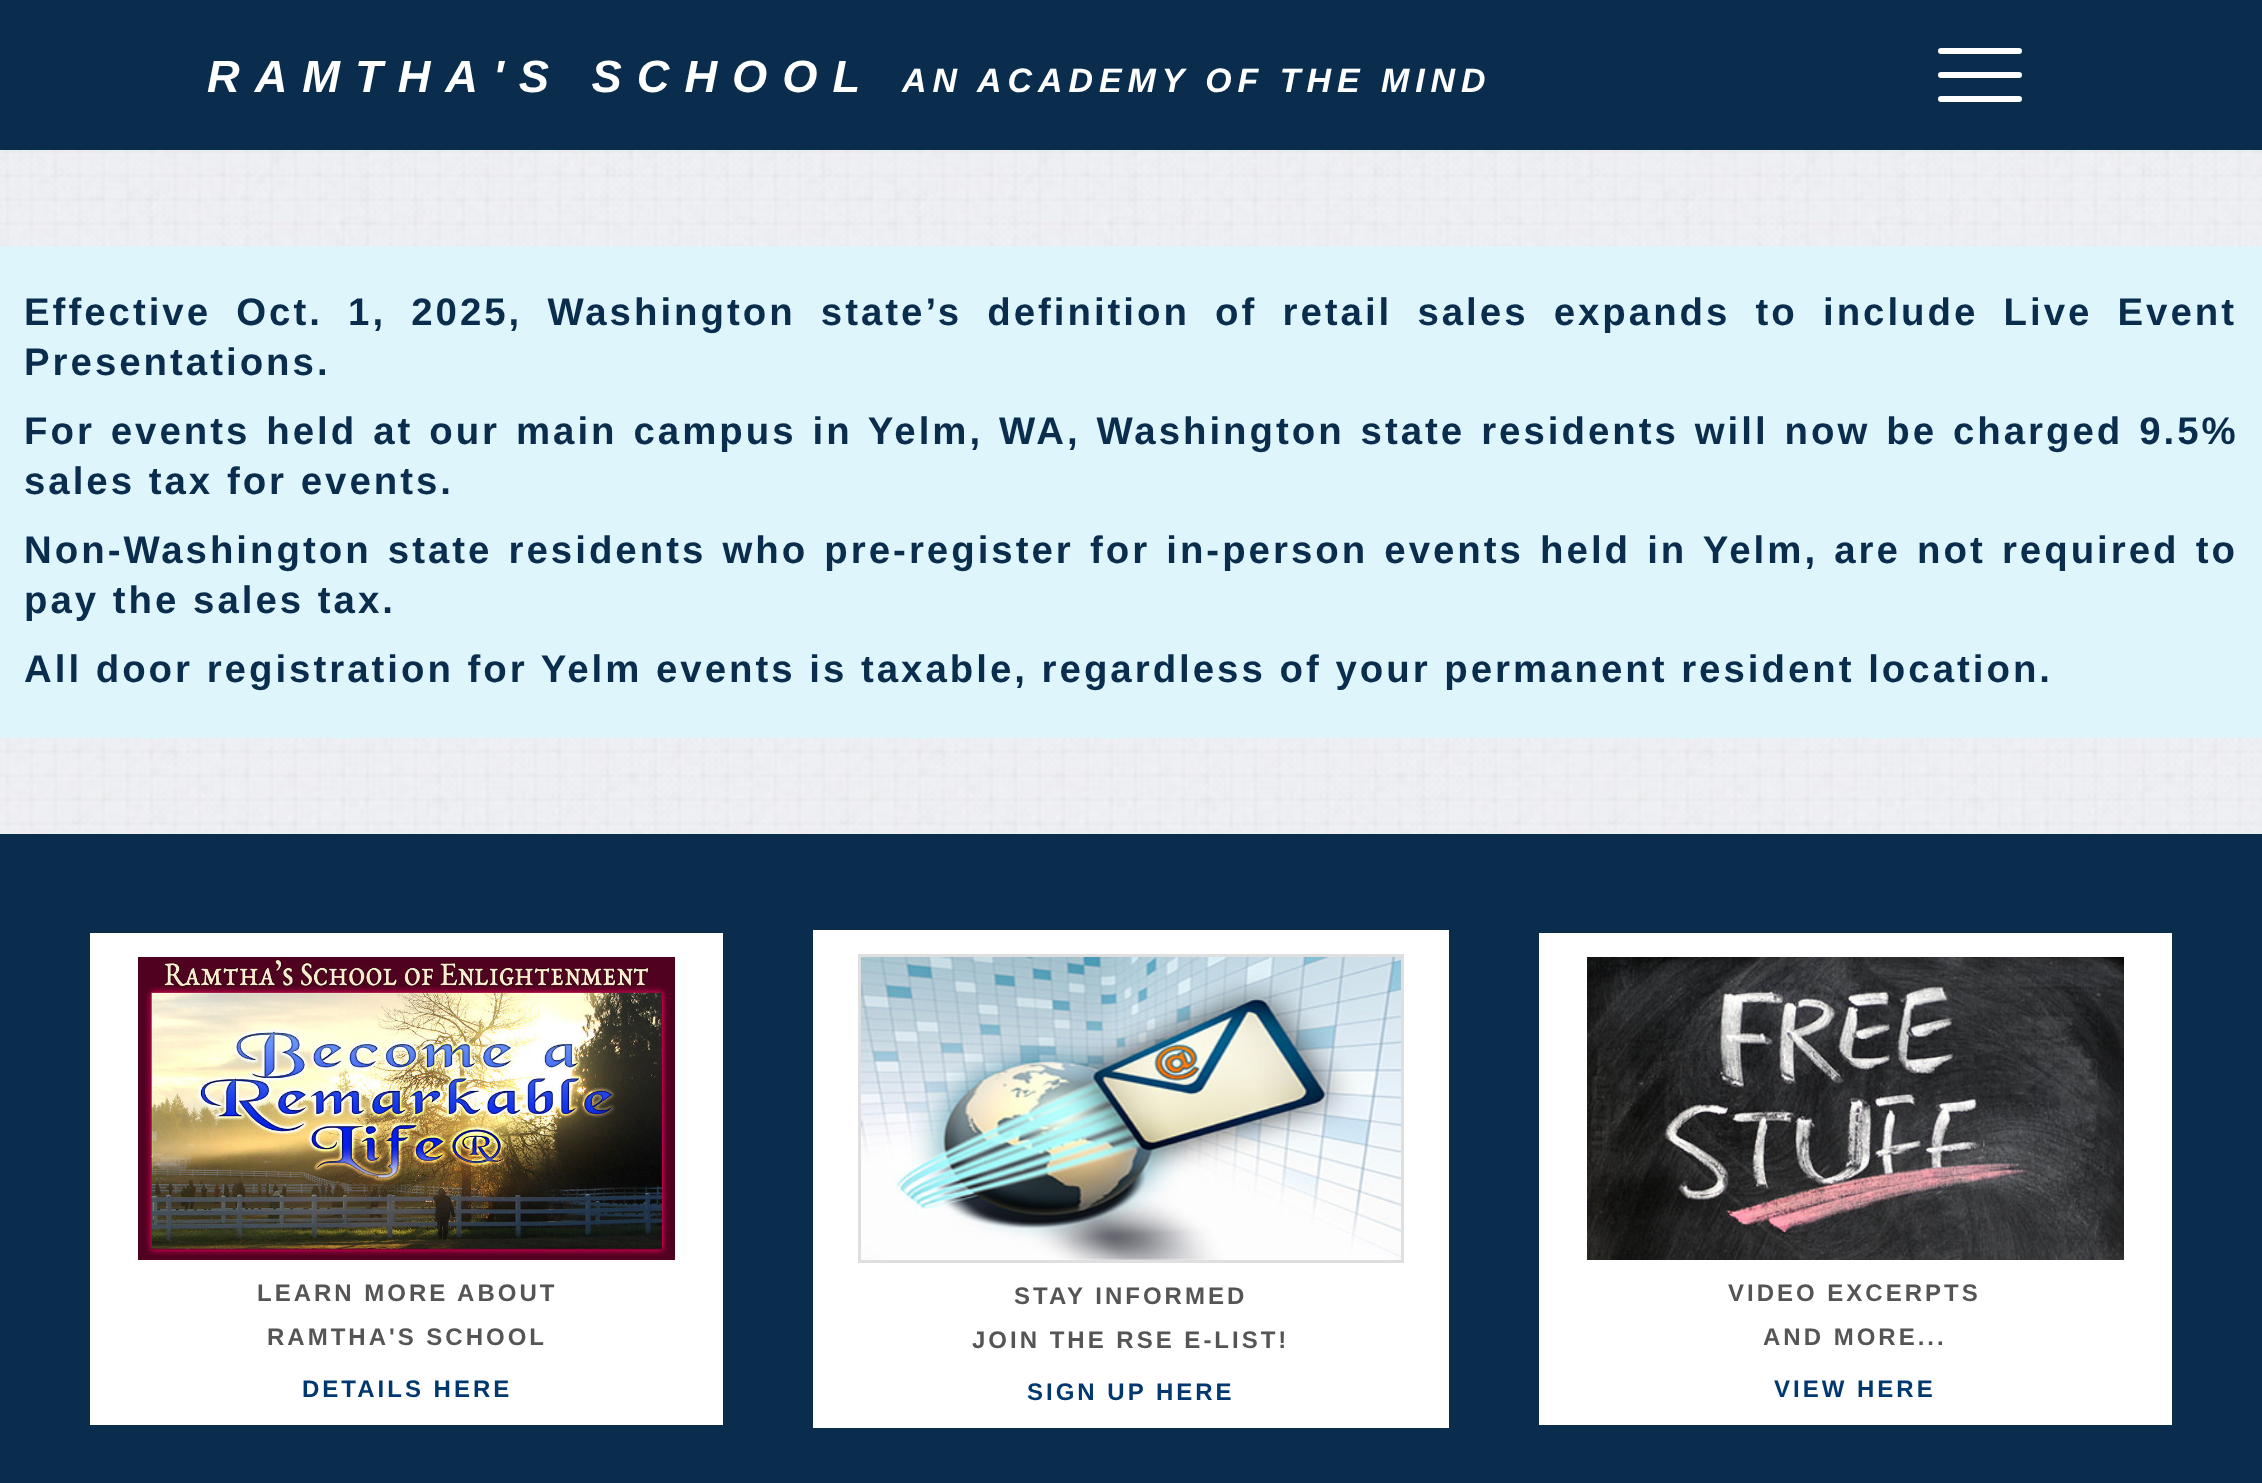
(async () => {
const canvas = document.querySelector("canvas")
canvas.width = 2262
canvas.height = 1483
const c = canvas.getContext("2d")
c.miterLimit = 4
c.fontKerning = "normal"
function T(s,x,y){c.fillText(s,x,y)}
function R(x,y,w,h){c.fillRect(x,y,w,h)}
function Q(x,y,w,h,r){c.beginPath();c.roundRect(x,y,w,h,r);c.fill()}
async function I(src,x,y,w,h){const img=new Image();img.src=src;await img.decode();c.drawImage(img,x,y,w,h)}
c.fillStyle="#fff"
R(0,0,2262,1483)
await I("1.png",0,150,2262,684)
c.fillStyle="#0a2d4e"
R(0,0,2262,150)
c.letterSpacing="15px"
c.font="italic bold 45.25px Liberation Sans"
c.fillStyle="#fff"
T("RAMTHA'S SCHOOL",207,92)
c.letterSpacing="6px"
c.font="italic bold 33.9px Liberation Sans"
T("AN ACADEMY OF THE MIND",902,92)
Q(1938,48,84,6,3)
Q(1938,72,84,6,3)
Q(1938,96,84,6,3)
c.fillStyle="#def5fc"
R(0,246,2262,492)
c.letterSpacing="3px"
c.wordSpacing="11.5px"
c.font="bold 38.4px Liberation Sans"
c.fillStyle="#0a2d4e"
T("Effective Oct. 1, 2025, Washington state’s definition of retail sales expands to include Live Event",24,325)
c.wordSpacing="0px"
T("Presentations.",24,375)
c.wordSpacing="2.25px"
T("For events held at our main campus in Yelm, WA, Washington state residents will now be charged 9.5%",24,444)
c.wordSpacing="0px"
T("sales tax for events.",24,494)
c.wordSpacing="2.5px"
T("Non-Washington state residents who pre-register for in-person events held in Yelm, are not required to",24,563)
c.wordSpacing="0px"
T("pay the sales tax.",24,613)
T("All door registration for Yelm events is taxable, regardless of your permanent resident location.",24,682)
R(0,834,2262,649)
c.fillStyle="#fff"
R(90,933,633,492)
await I("2.png",138,957,537,303)
c.font="bold 24px Liberation Sans"
c.fillStyle="#555"
T("LEARN MORE ABOUT",257,1301)
T("RAMTHA'S SCHOOL",267,1345)
c.fillStyle="#00386f"
T("DETAILS HERE",302,1397)
c.fillStyle="#fff"
R(813,930,636,498)
c.strokeStyle="#dfdfdf"
c.lineWidth=3
c.strokeRect(859.5,955.5,543,306)
await I("3.png",861,957,540,303)
c.fillStyle="#555"
T("STAY INFORMED",1014,1304)
T("JOIN THE RSE E-LIST!",972,1348)
c.fillStyle="#00386f"
T("SIGN UP HERE",1027,1400)
c.fillStyle="#fff"
R(1539,933,633,492)
await I("4.png",1587,957,537,303)
c.fillStyle="#555"
T("VIDEO EXCERPTS",1728,1301)
T("AND MORE...",1763,1345)
c.fillStyle="#00386f"
T("VIEW HERE",1774,1397)
})()
